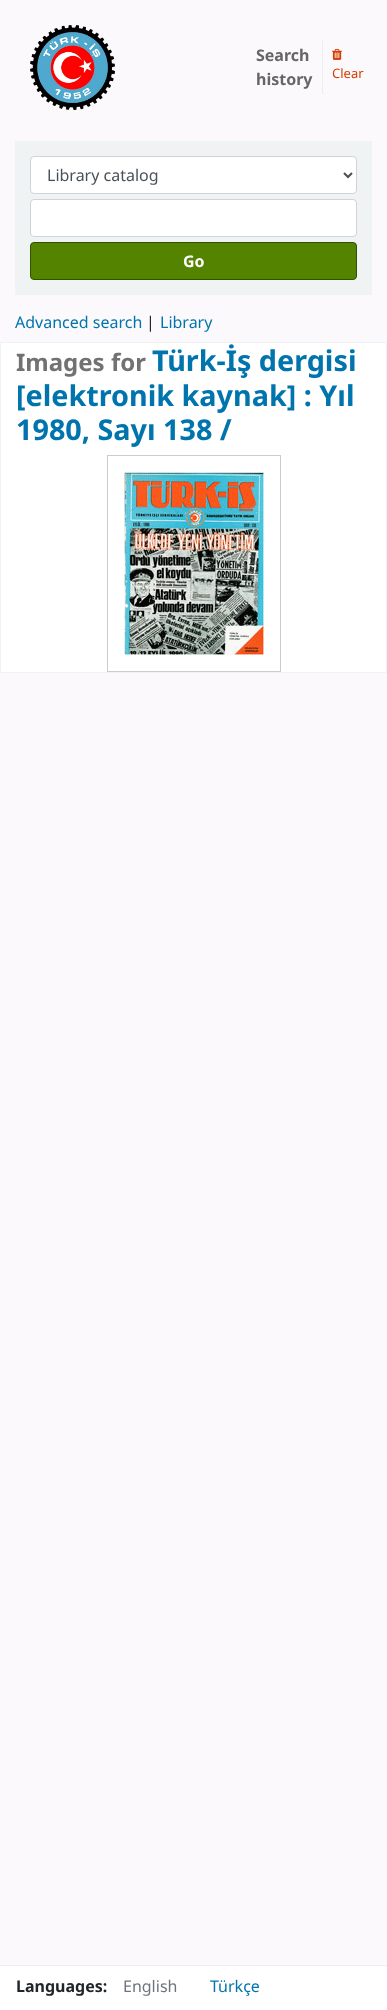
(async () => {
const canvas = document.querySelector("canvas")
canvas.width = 387
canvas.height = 2010
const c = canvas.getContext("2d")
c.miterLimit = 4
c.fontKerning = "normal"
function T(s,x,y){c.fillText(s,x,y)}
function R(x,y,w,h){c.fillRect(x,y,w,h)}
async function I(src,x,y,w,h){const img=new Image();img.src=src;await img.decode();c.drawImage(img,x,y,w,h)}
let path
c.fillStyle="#fcf9fc"
R(0,0,387,2010)
await I("1.png",30,25,85,85)
c.font="bold 16px Noto Sans"
c.fillStyle="#666"
T("Search",256,61)
T("history",256,85)
c.fillStyle="#eee"
R(322,93,2,1)
R(322,40,1,54)
await I("2.png",332,48,11,12)
c.font="13px Noto Sans"
c.fillStyle="#d43c00"
T("Clear",332,78)
c.fillStyle="#f0f3f3"
R(15,141,357,154)
c.fillStyle="#fff"
c.beginPath()
c.roundRect(30.5,156.5,326,37,3.5)
c.fill()
c.strokeStyle="#ced4da"
c.stroke()
path = new Path2D("M344 173l4 4l4-4")
c.strokeStyle="#495057"
c.lineWidth=2
c.stroke(path)
c.font="16px Noto Sans"
c.fillStyle="#495057"
T("Library catalog",47,181)
c.fillStyle="#fff"
c.beginPath()
c.roundRect(30.5,199.5,326,37,3.5)
c.fill()
c.strokeStyle="#ced4da"
c.lineWidth=1
c.stroke()
c.fillStyle="#548300"
c.beginPath()
c.roundRect(30.5,242.5,326,37,3.5)
c.fill()
c.strokeStyle="#335000"
c.stroke()
c.font="bold 16px Noto Sans"
c.fillStyle="#fff"
T("Go",183,267)
c.font="16px Noto Sans"
c.fillStyle="#0074ad"
T("Advanced search",15,328)
c.fillStyle="#212529"
T("|",146,328)
c.fillStyle="#0074ad"
T("Library",160,328)
c.fillStyle="#fff"
c.beginPath()
c.rect(.5,342.5,386,330)
c.fill()
c.strokeStyle="#f0f3f3"
c.stroke()
c.font="bold 24px Noto Sans"
c.fillStyle="#727272"
T("Images for",16,371)
c.font="bold 28.75px Noto Sans"
c.fillStyle="#0074ad"
T("Türk-İş dergisi",152,371)
T("[elektronik kaynak] : Yıl",16,406)
T("1980, Sayı 138 /",16,440)
c.strokeStyle="#ccc"
c.strokeRect(107.5,455.5,173,216)
await I("3.png",124,472,140,183)
c.fillStyle="#fff"
R(0,1966,387,44)
c.fillStyle="#eee"
R(0,1965,387,1)
c.font="bold 16px Noto Sans"
c.fillStyle="#212529"
T("Languages:",16,1992)
c.font="16px Noto Sans"
c.fillStyle="#6c757d"
T("English",123,1992)
c.fillStyle="#0074ad"
T("Türkçe",210,1992)
})()
